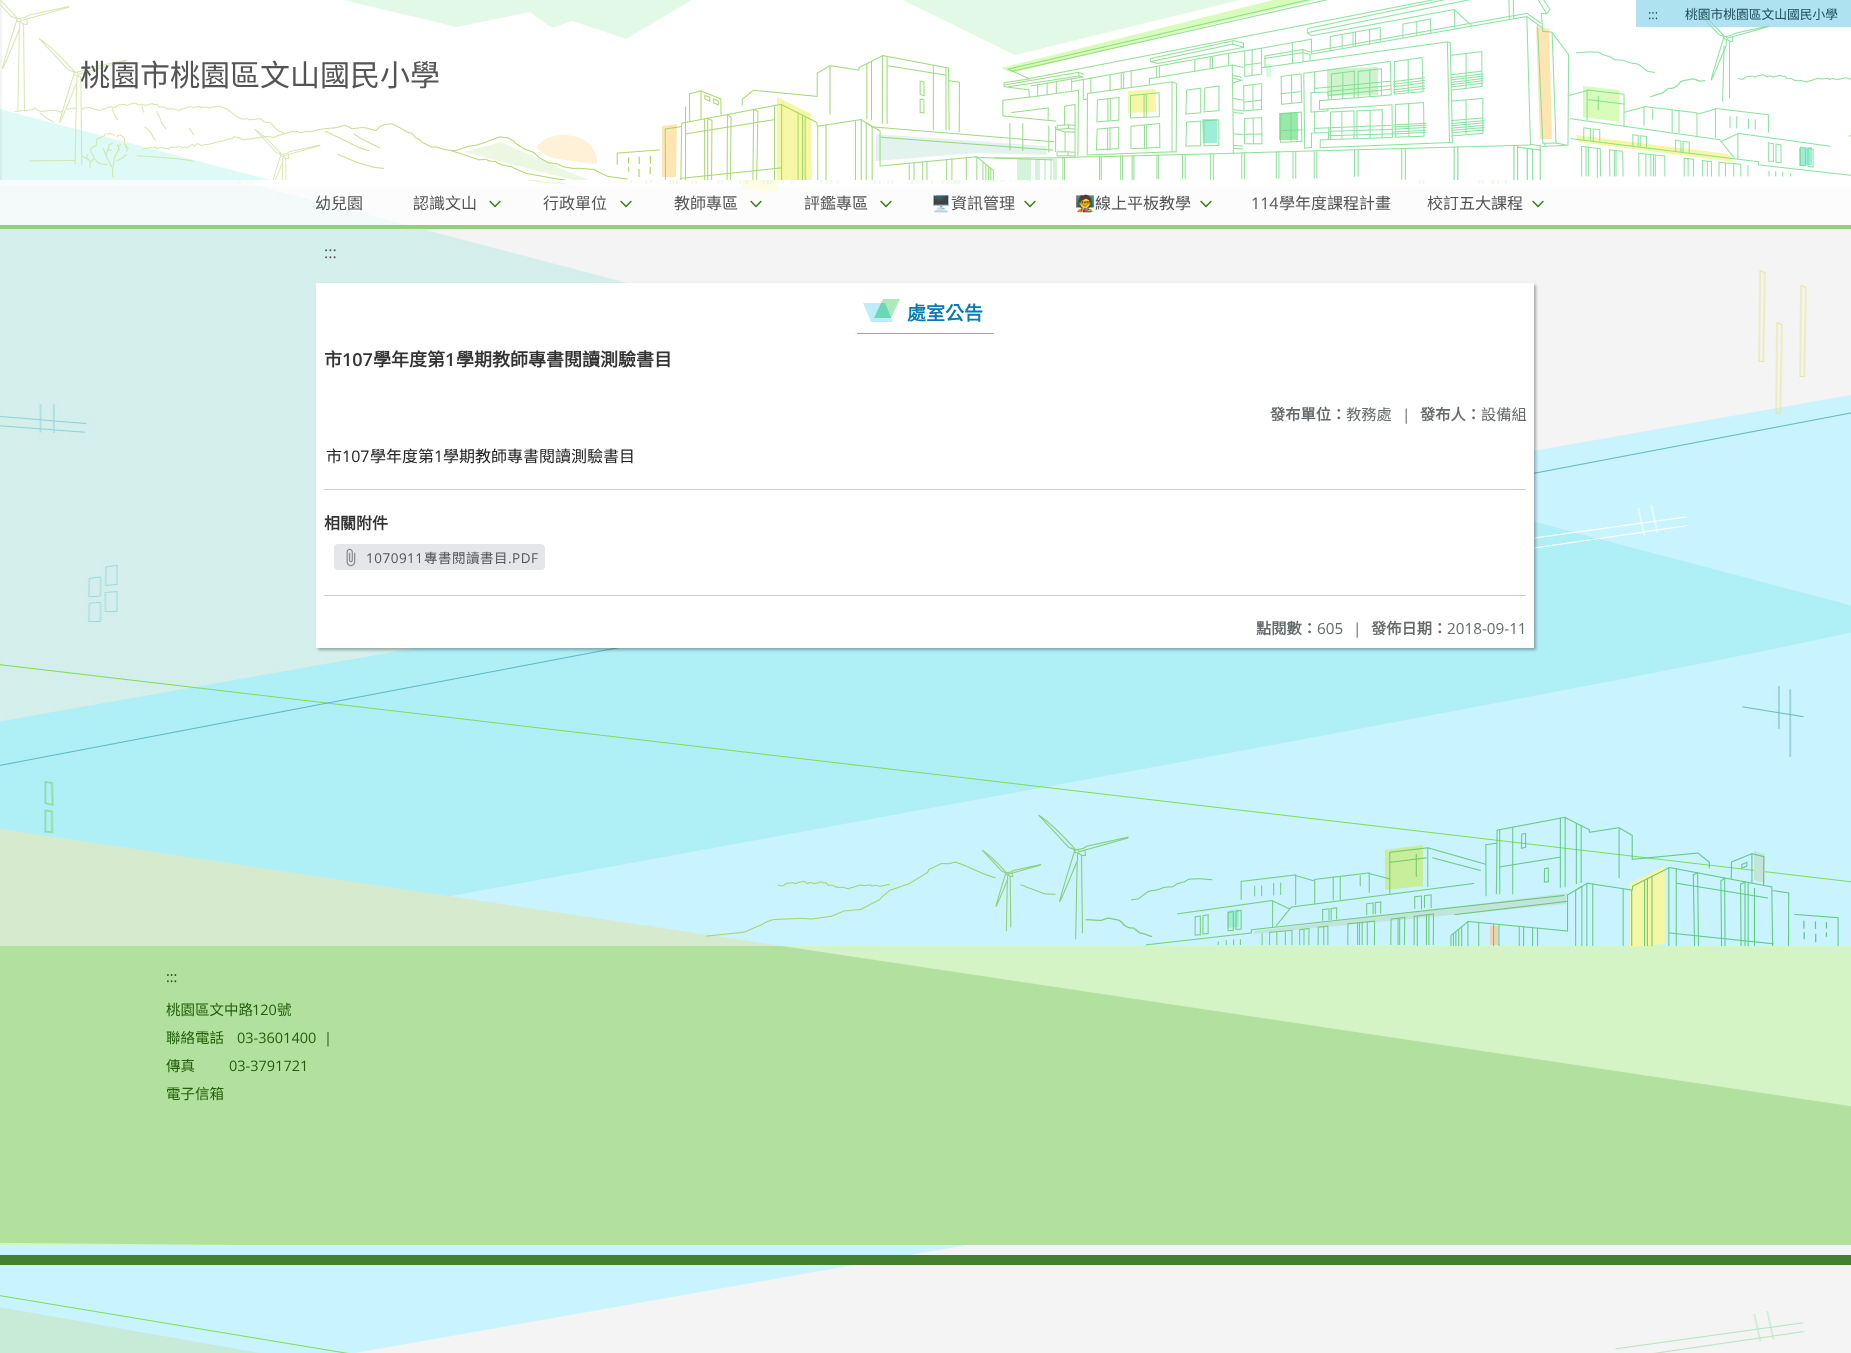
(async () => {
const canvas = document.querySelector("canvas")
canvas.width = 1851
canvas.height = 1353
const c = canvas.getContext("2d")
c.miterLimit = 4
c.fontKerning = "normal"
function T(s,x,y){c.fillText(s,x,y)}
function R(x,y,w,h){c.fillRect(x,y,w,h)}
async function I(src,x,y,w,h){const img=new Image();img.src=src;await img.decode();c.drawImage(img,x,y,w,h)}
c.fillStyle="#fff"
R(0,0,1851,1353)
await I("1.png",0,180,1851,1173)
await I("2.png",0,0,1851,180)
c.fillStyle="#8cd5eab3"
R(1636,0,215,27)
c.font="12.75px Open Sans"
c.fillStyle="#1f4c5d"
T(":::",1648,19)
c.font="12.75px Noto Sans CJK TC"
T("桃園市桃園區文山國民小學",1685,19)
c.font="30px Noto Sans CJK TC"
c.fillStyle="#545454"
T("桃園市桃園區文山國民小學",80,86)
c.fillStyle="#ffffffb3"
R(0,180,1851,45)
c.fillStyle="#91d075"
R(0,225,1851,4)
c.font="16px Noto Sans CJK TC"
c.fillStyle="#545454"
T("幼兒園",315,209)
T("認識文山",413,209)
await I("3.png",489,200,12,8)
T("行政單位",543,209)
await I("3.png",620,200,12,8)
T("教師專區",674,209)
await I("3.png",750,200,12,8)
T("評鑑專區",804,209)
await I("3.png",880,200,12,8)
c.font="16px Noto Color Emoji"
T("🖥️",931,209)
c.font="16px Noto Sans CJK TC"
T("資訊管理",951,209)
await I("3.png",1024,200,12,8)
c.font="16px Noto Color Emoji"
T("🧑‍🏫",1075,209)
c.font="16px Noto Sans CJK TC"
T("線上平板教學",1095,209)
await I("3.png",1200,200,12,8)
c.font="16px Open Sans"
T("114",1251,209)
c.font="16px Noto Sans CJK TC"
T("學年度課程計畫",1279,209)
T("校訂五大課程",1427,209)
await I("3.png",1532,200,12,8)
c.font="16px Open Sans"
T(":::",324,258)
c.fillStyle="#0000004d"
c.filter="blur(1.5px)"
c.beginPath()
c.rect(318,285,1218,365)
c.fill()
c.filter="none"
c.fillStyle="#fff"
R(316,283,1218,365)
c.fillStyle="#58c3e0"
R(857,333,137,1)
await I("4.png",863,299,37,23)
c.font="bold 19px Noto Sans CJK TC"
c.fillStyle="#057bb5"
T("處室公告",907,320)
c.font="bold 18px Noto Sans CJK TC"
c.fillStyle="#333"
T("市",324,366)
c.font="600 18px Open Sans"
T("107",342,366)
c.font="bold 18px Noto Sans CJK TC"
T("學年度第",373,366)
c.font="600 18px Open Sans"
T("1",445,366)
c.font="bold 18px Noto Sans CJK TC"
T("學期教師專書閱讀測驗書目",456,366)
c.font="bold 15.25px Noto Sans CJK TC"
c.fillStyle="#676a6c"
T("發布單位：",1270,420)
c.font="15.25px Noto Sans CJK TC"
T("教務處",1346,420)
c.font="15.25px Open Sans"
T("|",1402,420)
c.font="bold 15.25px Noto Sans CJK TC"
T("發布人：",1420,420)
c.font="15.25px Noto Sans CJK TC"
T("設備組",1481,420)
c.font="16px Noto Sans CJK TC"
c.fillStyle="#212121"
T("市",326,462)
c.font="16px Open Sans"
T("107",342,462)
c.font="16px Noto Sans CJK TC"
T("學年度第",370,462)
c.font="16px Open Sans"
T("1",434,462)
c.font="16px Noto Sans CJK TC"
T("學期教師專書閱讀測驗書目",443,462)
c.fillStyle="#ccc"
R(324,489,1202,1)
c.font="bold 16px Noto Sans CJK TC"
c.fillStyle="#333"
T("相關附件",324,529)
c.fillStyle="#e5e6e9"
c.beginPath()
c.roundRect(334.5,544.5,210,25,3.5)
c.fill()
c.strokeStyle="#e5e6e9"
c.stroke()
await I("5.png",346,548,10,19)
c.letterSpacing="0.5px"
c.font="13.5px Open Sans"
c.fillStyle="#545454"
T("1070911",366,563)
c.font="13.5px Noto Sans CJK TC"
T("專書閱讀書目",424,563)
c.font="13.5px Open Sans"
T(".PDF",508,563)
c.fillStyle="#ccc"
R(324,595,1202,1)
c.letterSpacing="0px"
c.font="bold 15.25px Noto Sans CJK TC"
c.fillStyle="#676a6c"
T("點閱數：",1256,634)
c.font="15.25px Open Sans"
T("605",1317,634)
T("|",1353,634)
c.font="bold 15.25px Noto Sans CJK TC"
T("發佈日期：",1371,634)
c.font="15.25px Open Sans"
T("2018-09-11",1447,634)
await I("6.png",0,814,1851,431)
c.font="14.5px Open Sans"
c.fillStyle="#235e08"
T(":::",166,982)
c.font="14.5px Noto Sans CJK TC"
T("桃園區文中路",166,1015)
c.font="14.5px Open Sans"
T("120",252,1015)
c.font="14.5px Noto Sans CJK TC"
T("號",277,1015)
T("聯絡電話",166,1043)
c.font="14.5px Open Sans"
T("03-3601400",237,1043)
T("|",324,1043)
c.font="14.5px Noto Sans CJK TC"
T("傳真",166,1071)
c.font="14.5px Open Sans"
T("03-3791721",229,1071)
c.font="14.5px Noto Sans CJK TC"
T("電子信箱",166,1099)
c.fillStyle="#44812e"
R(0,1255,1851,10)
})()
